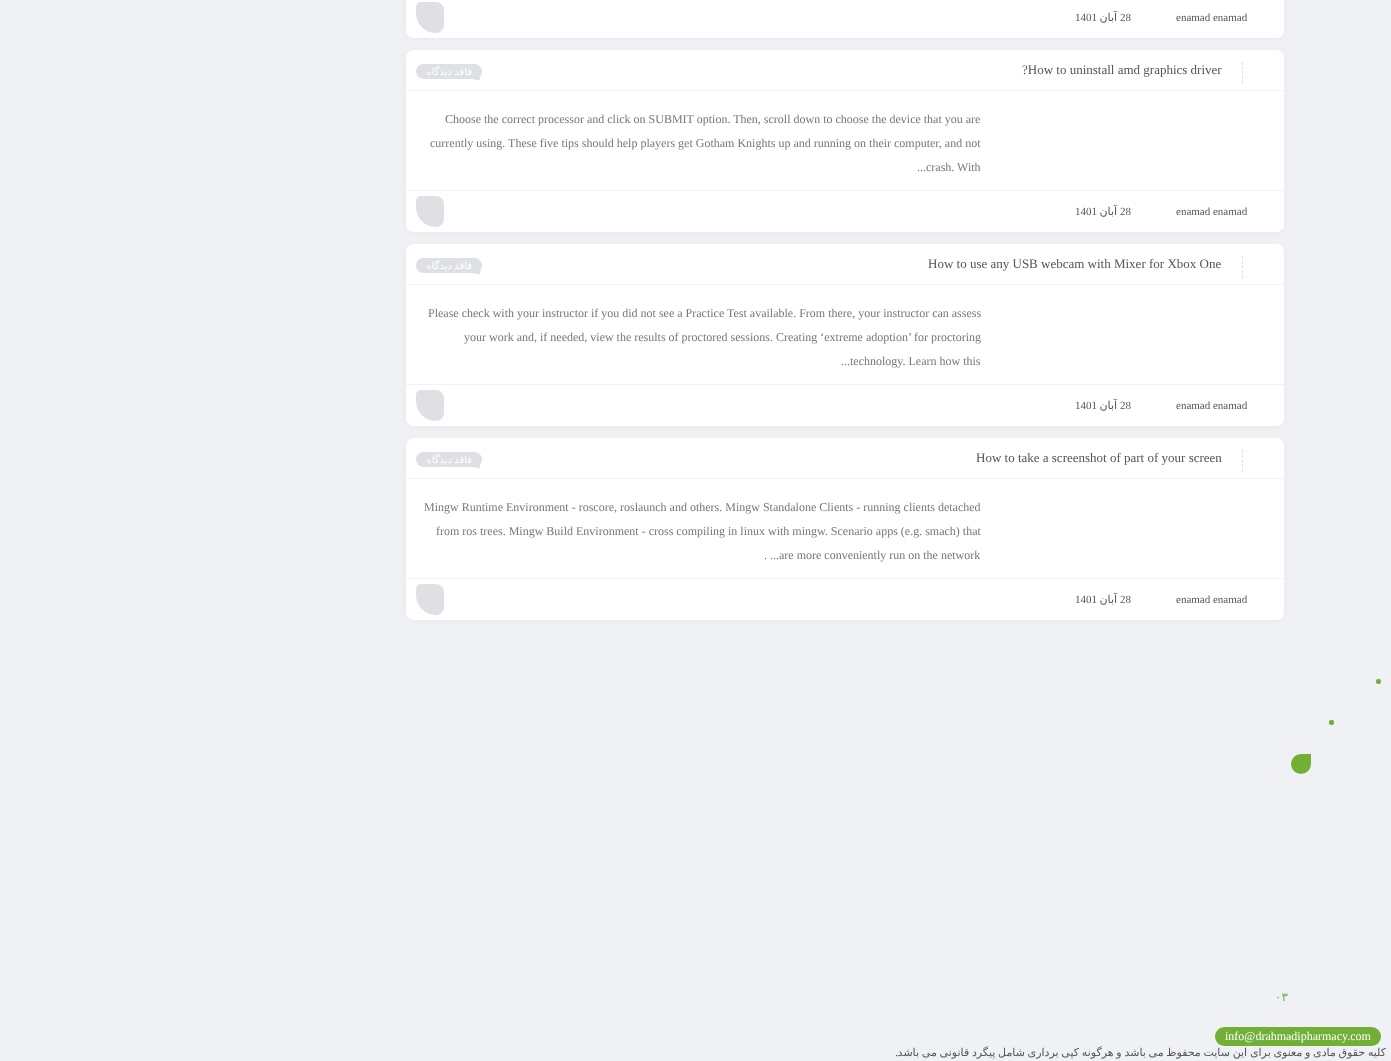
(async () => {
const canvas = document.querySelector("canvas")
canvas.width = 1391
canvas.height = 1061
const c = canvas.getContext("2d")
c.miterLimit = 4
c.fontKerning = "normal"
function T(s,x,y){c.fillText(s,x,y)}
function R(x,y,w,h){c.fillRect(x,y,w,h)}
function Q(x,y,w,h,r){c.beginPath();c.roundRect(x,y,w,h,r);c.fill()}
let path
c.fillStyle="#eff1f5"
R(0,0,1391,1061)
c.fillStyle="#0000001a"
c.filter="blur(3.5px)"
c.beginPath()
c.roundRect(409,-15,872,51,4)
c.fill()
c.filter="none"
c.fillStyle="#fff"
Q(406,-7,878,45,7)
c.fillStyle="#dfe0e3"
c.beginPath()
c.roundRect(416,2,28,31,[5,8,8,20])
c.fill()
c.font="11px Liberation Serif"
c.fillStyle="#555"
T("1401",1075,21)
c.direction="rtl"
c.font="11px DejaVu Sans"
T("آبان",1117,21)
c.direction="ltr"
c.font="11px Liberation Serif"
T("28",1120,21)
T("enamad enamad",1176,21)
c.fillStyle="#0000001a"
c.filter="blur(3.5px)"
c.beginPath()
c.roundRect(409,54,872,176,4)
c.fill()
c.filter="none"
c.fillStyle="#fff"
Q(406,50,878,182,7)
c.fillStyle="#f3f2f2"
R(406,90,878,1)
c.fillStyle="#dfe0e3"
Q(416,64,66,15,7.5)
c.wordSpacing="-1px"
c.direction="rtl"
c.font="10px DejaVu Sans"
c.fillStyle="#fff"
T("فاقد دیدگاه",472,75)
c.fillStyle="#dfe0e3"
path = new Path2D("M472.5 79l8.5-5.5l-1.5 7z")
c.fill(path)
c.wordSpacing="0px"
c.direction="ltr"
c.font="13px Liberation Serif"
c.fillStyle="#555"
T("?How to uninstall amd graphics driver",1022,74)
path = new Path2D("M1242.5 62v22")
c.strokeStyle="#dfe0e3"
c.setLineDash([3,1.75])
c.stroke(path)
c.font="12px Liberation Serif"
c.fillStyle="#777"
T("Choose the correct processor and click on SUBMIT option. Then, scroll down to choose the device that you are",445,123)
T("currently using. These five tips should help players get Gotham Knights up and running on their computer, and not",430,147)
T("...crash. With",917,171)
c.fillStyle="#f3f2f2"
R(406,190,878,1)
c.fillStyle="#dfe0e3"
c.beginPath()
c.roundRect(416,196,28,31,[5,8,8,20])
c.fill()
c.font="11px Liberation Serif"
c.fillStyle="#555"
T("1401",1075,215)
c.direction="rtl"
c.font="11px DejaVu Sans"
T("آبان",1117,215)
c.direction="ltr"
c.font="11px Liberation Serif"
T("28",1120,215)
T("enamad enamad",1176,215)
c.fillStyle="#0000001a"
c.filter="blur(3.5px)"
c.beginPath()
c.roundRect(409,248,872,176,4)
c.fill()
c.filter="none"
c.fillStyle="#fff"
Q(406,244,878,182,7)
c.fillStyle="#f3f2f2"
R(406,284,878,1)
c.fillStyle="#dfe0e3"
Q(416,258,66,15,7.5)
c.wordSpacing="-1px"
c.direction="rtl"
c.font="10px DejaVu Sans"
c.fillStyle="#fff"
T("فاقد دیدگاه",472,269)
c.fillStyle="#dfe0e3"
path = new Path2D("M472.5 273l8.5-5.5l-1.5 7z")
c.fill(path)
c.wordSpacing="0px"
c.direction="ltr"
c.font="13px Liberation Serif"
c.fillStyle="#555"
T("How to use any USB webcam with Mixer for Xbox One",928,268)
path = new Path2D("M1242.5 256v22")
c.stroke(path)
c.font="12px Liberation Serif"
c.fillStyle="#777"
T("Please check with your instructor if you did not see a Practice Test available. From there, your instructor can assess",428,317)
T("your work and, if needed, view the results of proctored sessions. Creating ‘extreme adoption’ for proctoring",464,341)
T("...technology. Learn how this",841,365)
c.fillStyle="#f3f2f2"
R(406,384,878,1)
c.fillStyle="#dfe0e3"
c.beginPath()
c.roundRect(416,390,28,31,[5,8,8,20])
c.fill()
c.font="11px Liberation Serif"
c.fillStyle="#555"
T("1401",1075,409)
c.direction="rtl"
c.font="11px DejaVu Sans"
T("آبان",1117,409)
c.direction="ltr"
c.font="11px Liberation Serif"
T("28",1120,409)
T("enamad enamad",1176,409)
c.fillStyle="#0000001a"
c.filter="blur(3.5px)"
c.beginPath()
c.roundRect(409,442,872,176,4)
c.fill()
c.filter="none"
c.fillStyle="#fff"
Q(406,438,878,182,7)
c.fillStyle="#f3f2f2"
R(406,478,878,1)
c.fillStyle="#dfe0e3"
Q(416,452,66,15,7.5)
c.wordSpacing="-1px"
c.direction="rtl"
c.font="10px DejaVu Sans"
c.fillStyle="#fff"
T("فاقد دیدگاه",472,463)
c.fillStyle="#dfe0e3"
path = new Path2D("M472.5 467l8.5-5.5l-1.5 7z")
c.fill(path)
c.wordSpacing="0px"
c.direction="ltr"
c.font="13px Liberation Serif"
c.fillStyle="#555"
T("How to take a screenshot of part of your screen",976,462)
path = new Path2D("M1242.5 450v22")
c.stroke(path)
c.font="12px Liberation Serif"
c.fillStyle="#777"
T("Mingw Runtime Environment - roscore, roslaunch and others. Mingw Standalone Clients - running clients detached",424,511)
T("from ros trees. Mingw Build Environment - cross compiling in linux with mingw. Scenario apps (e.g. smach) that",436,535)
T(". ...are more conveniently run on the network",764,559)
c.fillStyle="#f3f2f2"
R(406,578,878,1)
c.fillStyle="#dfe0e3"
c.beginPath()
c.roundRect(416,584,28,31,[5,8,8,20])
c.fill()
c.font="11px Liberation Serif"
c.fillStyle="#555"
T("1401",1075,603)
c.direction="rtl"
c.font="11px DejaVu Sans"
T("آبان",1117,603)
c.direction="ltr"
c.font="11px Liberation Serif"
T("28",1120,603)
T("enamad enamad",1176,603)
c.fillStyle="#71af36"
Q(1376,679,5,5,2)
Q(1329,720,5,5,2)
c.beginPath()
c.roundRect(1291,754,20,20,[10,0,10,10])
c.fill()
c.font="12px DejaVu Sans"
T("۰۳",1275,1001)
Q(1215,1027,166,19,9.5)
c.font="12px Liberation Serif"
c.fillStyle="#fff"
T("info@drahmadipharmacy.com",1225,1040)
c.direction="rtl"
c.font="11px Liberation Serif"
c.fillStyle="#555"
T(".",898,1056)
c.wordSpacing="-0.75px"
c.font="11px DejaVu Sans"
T("کلیه حقوق مادی و معنوی برای این سایت محفوظ می باشد و هرگونه کپی برداری شامل پیگرد قانونی می باشد",1386,1056)
})()
